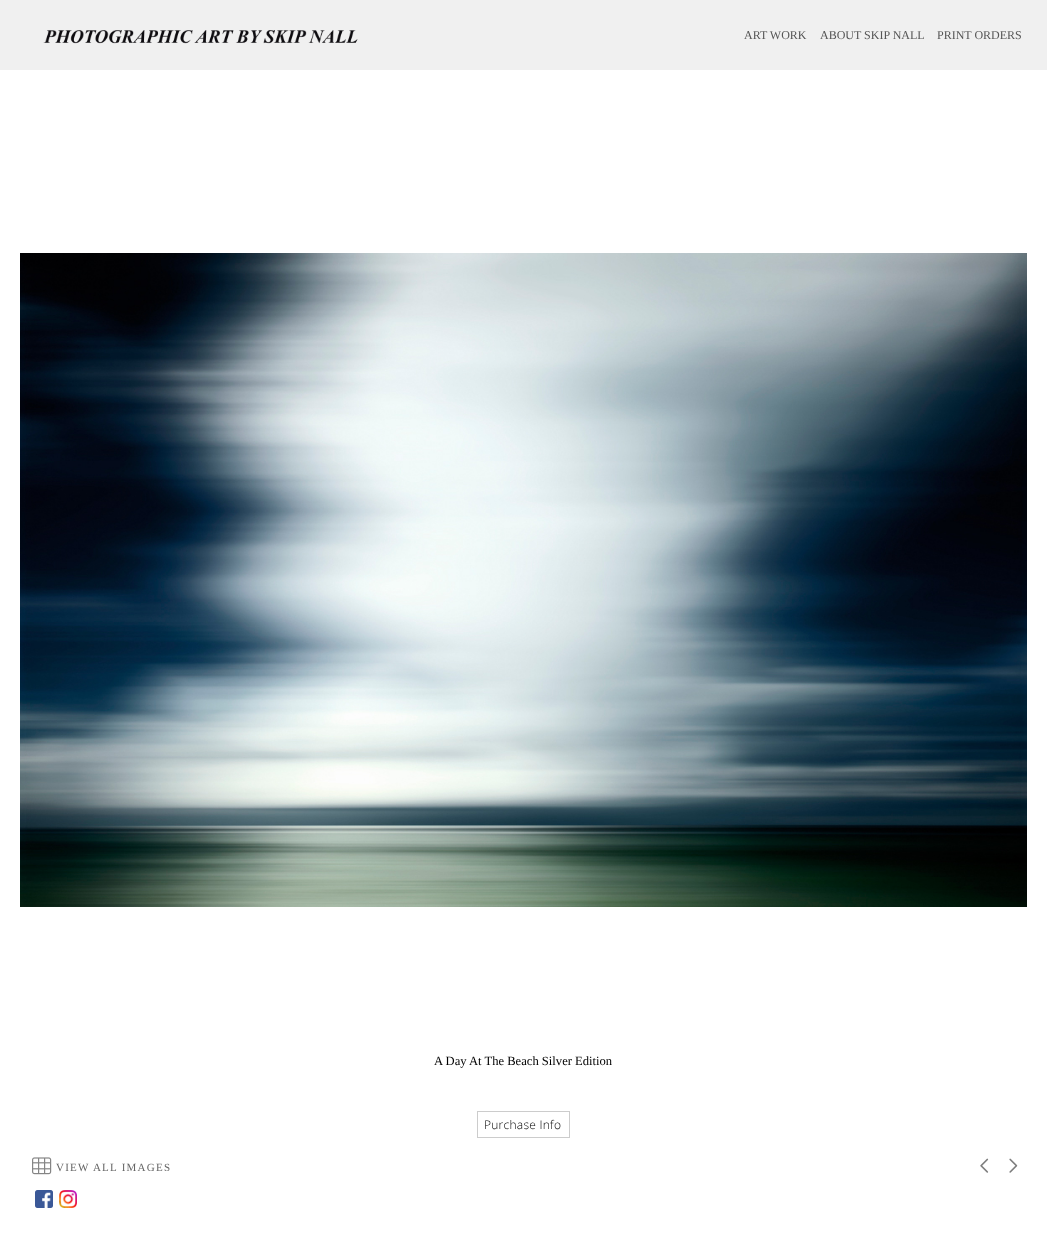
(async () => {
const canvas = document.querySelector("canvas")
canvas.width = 1047
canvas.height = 1245
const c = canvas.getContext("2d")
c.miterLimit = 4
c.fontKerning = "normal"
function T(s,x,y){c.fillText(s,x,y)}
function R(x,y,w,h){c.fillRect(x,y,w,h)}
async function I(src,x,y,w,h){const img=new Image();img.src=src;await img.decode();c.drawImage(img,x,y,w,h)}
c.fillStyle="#fff"
R(0,0,1047,1245)
c.fillStyle="#f0f0f0"
R(0,0,1047,70)
await I("1.png",43,30,315,14)
c.font="12px Liberation Serif"
c.fillStyle="#555"
T("ART WORK",744,39)
T("ABOUT SKIP NALL",820,39)
T("PRINT ORDERS",937,39)
await I("2.png",20,253,1007,654)
c.font="12.6px Liberation Serif"
c.fillStyle="#000"
T("A Day At The Beach Silver Edition",434,1065)
c.strokeStyle="#ccc"
c.strokeRect(477.5,1111.5,92,26)
c.letterSpacing="0.25px"
c.font="300 12px Open Sans"
T("Purchase Info",484,1129)
await I("3.png",32,1157,20,18)
c.letterSpacing="1.25px"
c.font="11px Liberation Serif"
c.fillStyle="#666"
T("VIEW ALL IMAGES",56,1171)
await I("4.png",980,1158,9,15)
await I("5.png",1009,1158,9,15)
await I("6.png",35,1190,18,18)
await I("7.png",59,1190,18,18)
})()
